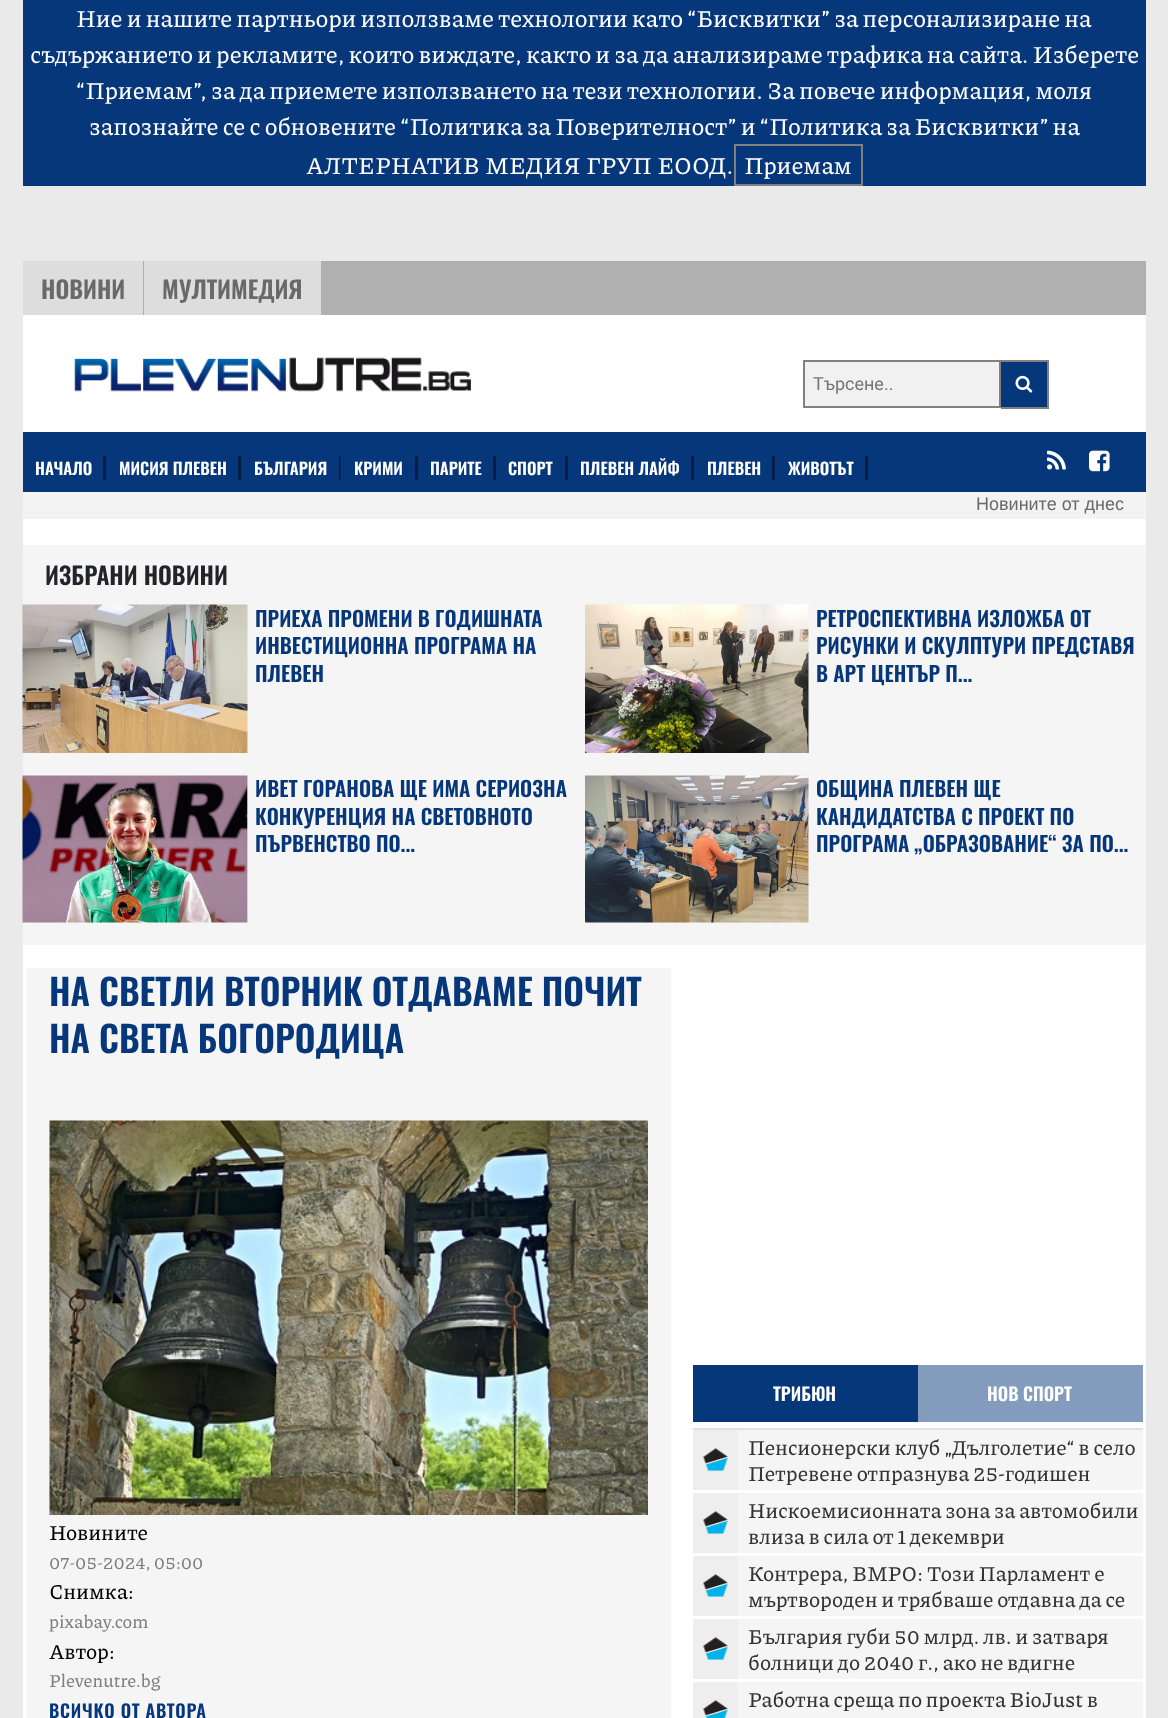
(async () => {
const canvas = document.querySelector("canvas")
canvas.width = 1168
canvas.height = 1718
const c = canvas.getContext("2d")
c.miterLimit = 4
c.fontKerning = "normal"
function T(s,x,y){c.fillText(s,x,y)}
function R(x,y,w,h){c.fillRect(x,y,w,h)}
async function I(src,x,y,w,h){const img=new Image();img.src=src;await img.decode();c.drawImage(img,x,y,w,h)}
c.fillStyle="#eaeaea"
R(0,0,1168,1718)
c.fillStyle="#06377b"
R(23,0,1123,186)
c.font="100 24px Piazzolla"
c.fillStyle="#fff"
T("Ние и нашите партньори използваме технологии като “Бисквитки” за персонализиране на",76,27)
T("съдържанието и рекламите, които виждате, както и за да анализираме трафика на сайта. Изберете",30,63)
T("“Приемам”, за да приемете използването на тези технологии. За повече информация, моля",76,99)
T("запознайте се с обновените “Политика за Поверителност” и “Политика за Бисквитки” на",89,135)
T("АЛТЕРНАТИВ МЕДИЯ ГРУП ЕООД.",306,174)
c.strokeStyle="#808080"
c.lineWidth=2
c.strokeRect(735,145,127,40)
T("Приемам",744,174)
c.fillStyle="#b0b0b1"
R(321,261,825,54)
c.fillStyle="#ddd"
R(23,261,120,54)
c.fillStyle="#b0b0b1"
R(143,261,1,54)
c.font="600 24px Oswald"
c.fillStyle="#696969"
T("НОВИНИ",41,299)
c.fillStyle="#ddd"
R(144,261,177,54)
c.fillStyle="#696969"
T("МУЛТИМЕДИЯ",162,299)
c.fillStyle="#fff"
R(23,315,1123,117)
await I("1.png",74,357,397,35)
c.fillStyle="#f1f1f1"
c.beginPath()
c.rect(804,361,196,46)
c.fill()
c.stroke()
c.font="18px Roboto"
c.fillStyle="#757575"
T("Търсене..",813,390)
c.fillStyle="#06377b"
R(1001,362,46,45)
c.fillStyle="#808080"
R(1001,360,48,2)
R(1047,360,2,48)
R(1001,407,48,2)
await I("2.png",1015,375,18,18)
c.fillStyle="#06377b"
R(23,432,1123,60)
c.fillStyle="#031e44"
R(103,456,3,24)
c.font="600 16.5px Oswald"
c.fillStyle="#fff"
T("НАЧАЛО",35,475)
c.fillStyle="#031e44"
R(238,456,3,24)
c.fillStyle="#fff"
T("МИСИЯ ПЛЕВЕН",119,475)
await I("3.png",339,456,2,24)
T("БЪЛГАРИЯ",254,475)
c.fillStyle="#031e44"
R(415,456,3,24)
c.fillStyle="#fff"
T("КРИМИ",354,475)
c.fillStyle="#031e44"
R(493,456,3,24)
c.fillStyle="#fff"
T("ПАРИТЕ",430,475)
c.fillStyle="#031e44"
R(565,456,3,24)
c.fillStyle="#fff"
T("СПОРТ",508,475)
c.fillStyle="#031e44"
R(691,456,3,24)
c.fillStyle="#fff"
T("ПЛЕВЕН ЛАЙФ",580,475)
c.fillStyle="#031e44"
R(772,456,3,24)
c.fillStyle="#fff"
T("ПЛЕВЕН",707,475)
c.fillStyle="#031e44"
R(865,456,3,24)
c.fillStyle="#fff"
T("ЖИВОТЪТ",788,475)
await I("4.png",1047,450,19,20)
await I("5.png",1089,450,21,22)
c.fillStyle="#f3f3f3"
R(23,492,1123,27)
c.font="18px Liberation Sans"
c.fillStyle="#696969"
T("Новините от днес",976,510)
c.fillStyle="#fff"
R(23,519,1123,1199)
c.fillStyle="#f5f5f5"
R(23,545,1123,60)
c.font="600 24px Oswald"
c.fillStyle="#212529"
T("ИЗБРАНИ НОВИНИ",45,585)
c.fillStyle="#f5f5f5"
R(23,605,1123,171)
await I("6.png",22,604,226,149)
c.font="600 21px Oswald"
c.fillStyle="#06377b"
T("ПРИЕХА ПРОМЕНИ В ГОДИШНАТА",255,627)
T("ИНВЕСТИЦИОННА ПРОГРАМА НА",255,654)
T("ПЛЕВЕН",255,682)
await I("7.png",585,604,224,149)
T("РЕТРОСПЕКТИВНА ИЗЛОЖБА ОТ",816,627)
T("РИСУНКИ И СКУЛПТУРИ ПРЕДСТАВЯ",816,654)
T("В АРТ ЦЕНТЪР П...",816,682)
c.fillStyle="#f5f5f5"
R(23,776,1123,169)
await I("8.png",22,775,226,148)
c.fillStyle="#06377b"
T("ИВЕТ ГОРАНОВА ЩЕ ИМА СЕРИОЗНА",255,797)
T("КОНКУРЕНЦИЯ НА СВЕТОВНОТО",255,825)
T("ПЪРВЕНСТВО ПО...",255,852)
await I("9.png",585,775,224,148)
T("ОБЩИНА ПЛЕВЕН ЩЕ",816,797)
T("КАНДИДАТСТВА С ПРОЕКТ ПО",816,825)
T("ПРОГРАМА „ОБРАЗОВАНИЕ“ ЗА ПО...",816,852)
c.fillStyle="#f5f5f5"
R(27,968,644,750)
c.font="600 36px Oswald"
c.fillStyle="#06377b"
T("НА СВЕТЛИ ВТОРНИК ОТДАВАМЕ ПОЧИТ",49,1006)
T("НА СВЕТА БОГОРОДИЦА",49,1053)
await I("10.png",49,1120,599,395)
c.font="100 21px Piazzolla"
c.fillStyle="#000"
T("Новините",49,1540)
c.font="100 18px Piazzolla"
c.fillStyle="#808080"
T("07-05-2024, 05:00",49,1569)
c.font="100 21px Piazzolla"
c.fillStyle="#000"
T("Снимка:",49,1599)
c.font="100 18px Piazzolla"
c.fillStyle="#808080"
T("pixabay.com",49,1628)
c.font="100 21px Piazzolla"
c.fillStyle="#000"
T("Автор:",49,1659)
c.font="100 18px Piazzolla"
c.fillStyle="#808080"
T("Plevenutre.bg",49,1687)
c.letterSpacing="0.75px"
c.font="600 18px Oswald"
c.fillStyle="#06377b"
T("ВСИЧКО ОТ АВТОРА",49,1718)
c.fillStyle="#dee2e6"
R(693,1428,450,2)
c.fillStyle="#06377b"
R(693,1365,225,57)
c.letterSpacing="0px"
c.fillStyle="#fff"
T("ТРИБЮН",773,1401)
c.fillStyle="#839bbd"
R(918,1365,225,57)
c.fillStyle="#fff"
T("НОВ СПОРТ",987,1401)
c.fillStyle="#eee"
R(693,1430,45,60)
await I("11.png",703,1448,25,23)
c.fillStyle="#f5f5f5"
R(738,1430,405,60)
c.font="100 21px Piazzolla"
c.fillStyle="#333"
T("Пенсионерски клуб „Дълголетие“ в село",748,1455)
T("Петревене отпразнува 25-годишен",748,1481)
c.fillStyle="#eee"
R(693,1493,45,60)
await I("12.png",703,1511,25,23)
c.fillStyle="#f5f5f5"
R(738,1493,405,60)
c.fillStyle="#333"
T("Нискоемисионната зона за автомобили",748,1518)
T("влиза в сила от 1 декември",748,1544)
c.fillStyle="#eee"
R(693,1556,45,60)
await I("11.png",703,1574,25,23)
c.fillStyle="#f5f5f5"
R(738,1556,405,60)
c.fillStyle="#333"
T("Контрера, ВМРО: Този Парламент е",748,1581)
T("мъртвороден и трябваше отдавна да се",748,1607)
c.fillStyle="#eee"
R(693,1619,45,60)
await I("11.png",703,1637,25,23)
c.fillStyle="#f5f5f5"
R(738,1619,405,60)
c.fillStyle="#333"
T("България губи 50 млрд. лв. и затваря",748,1644)
T("болници до 2040 г., ако не вдигне",748,1670)
c.fillStyle="#eee"
R(693,1682,45,36)
await I("13.png",703,1700,25,18)
c.fillStyle="#f5f5f5"
R(738,1682,405,36)
c.fillStyle="#333"
T("Работна среща по проекта BioJust в",748,1707)
})()
